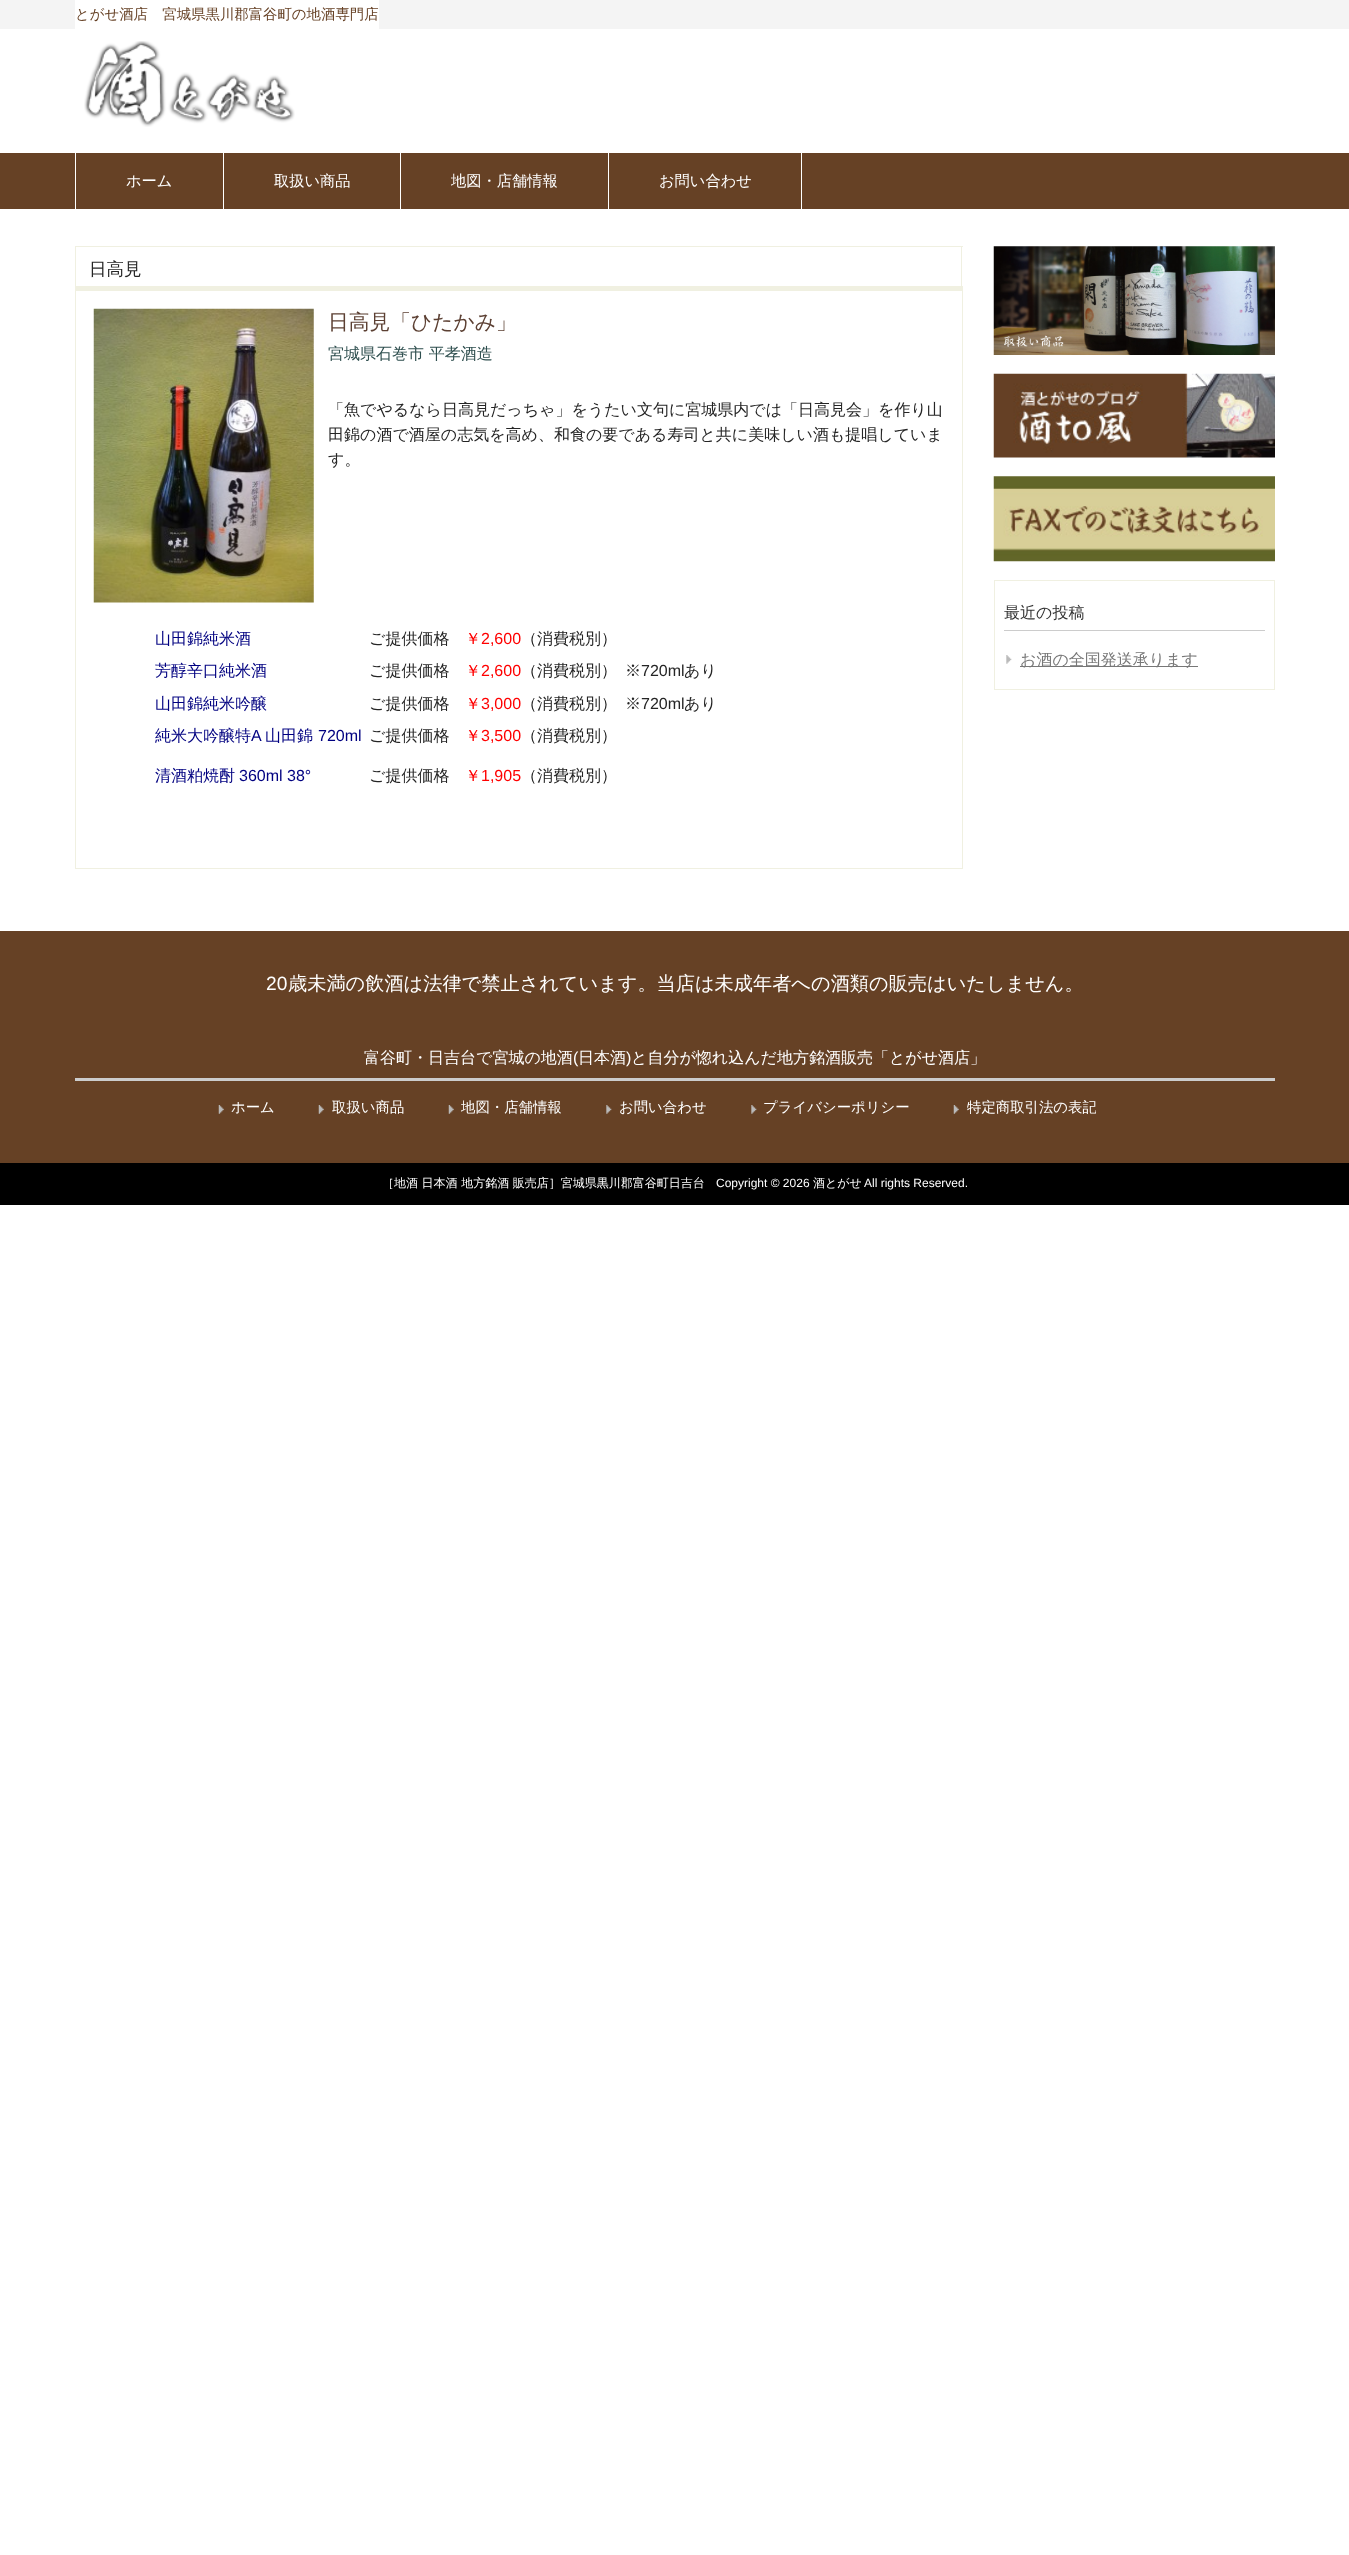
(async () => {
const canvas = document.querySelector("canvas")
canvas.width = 1349
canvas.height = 2555
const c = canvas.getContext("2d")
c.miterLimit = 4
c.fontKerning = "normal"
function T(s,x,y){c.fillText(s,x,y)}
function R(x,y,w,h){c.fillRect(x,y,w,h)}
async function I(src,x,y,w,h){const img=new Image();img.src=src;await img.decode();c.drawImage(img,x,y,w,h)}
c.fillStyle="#fff"
R(0,0,1349,2555)
c.fillStyle="#f4f4f4"
R(0,0,1349,29)
c.fillStyle="#fff"
R(75,0,304,29)
c.font="500 14.4px WenQuanYi Zen Hei"
c.fillStyle="#664125"
T("とがせ酒店　宮城県黒川郡富谷町の地酒専門店",75,19)
await I("1.png",84,41,211,86)
R(0,153,1349,56)
c.fillStyle="#fff"
R(223,153,1,56)
R(75,153,1,56)
c.font="500 15.25px WenQuanYi Zen Hei"
T("ホーム",126,186)
R(400,153,1,56)
T("取扱い商品",274,186)
R(608,153,1,56)
T("地図・店舗情報",451,186)
R(801,153,1,56)
T("お問い合わせ",659,186)
c.fillStyle="#f0f0e1"
R(75,286,888,4)
R(75,246,888,1)
R(961,246,1,44)
R(75,246,1,44)
c.font="500 17.5px WenQuanYi Zen Hei"
c.fillStyle="#252525"
T("日高見",89,275)
c.strokeStyle="#f0f0e1"
c.strokeRect(75.5,290.5,887,578)
await I("2.png",93,308,221,295)
c.font="500 20.75px WenQuanYi Zen Hei"
c.fillStyle="#5c4033"
T("日高見「ひたかみ」",328,329)
c.font="500 16px WenQuanYi Zen Hei"
c.fillStyle="#2f4f4f"
T("宮城県石巻市 平孝酒造",328,359)
c.fillStyle="#252525"
T("「魚でやるなら日高見だっちゃ」をうたい文句に宮城県内では「日高見会」を作り山",328,415)
T("田錦の酒で酒屋の志気を高め、和食の要である寿司と共に美味しい酒も提唱していま",328,440)
T("す。",328,465)
c.fillStyle="#000080"
T("山田錦純米酒",155,644)
c.fillStyle="#252525"
T("ご提供価格",369,644)
c.fillStyle="#f00"
T("￥",465,644)
c.font="16px Liberation Sans"
T("2,600",481,644)
c.font="500 16px WenQuanYi Zen Hei"
c.fillStyle="#252525"
T("（消費税別）",521,644)
c.fillStyle="#000080"
T("芳醇辛口純米酒",155,676)
c.fillStyle="#252525"
T("ご提供価格",369,676)
c.fillStyle="#f00"
T("￥",465,676)
c.font="16px Liberation Sans"
T("2,600",481,676)
c.font="500 16px WenQuanYi Zen Hei"
c.fillStyle="#252525"
T("（消費税別）",521,676)
T("※",625,676)
c.font="16px Liberation Sans"
T("720ml",641,676)
c.font="500 16px WenQuanYi Zen Hei"
T("あり",684,676)
c.fillStyle="#000080"
T("山田錦純米吟醸",155,709)
c.fillStyle="#252525"
T("ご提供価格",369,709)
c.fillStyle="#f00"
T("￥",465,709)
c.font="16px Liberation Sans"
T("3,000",481,709)
c.font="500 16px WenQuanYi Zen Hei"
c.fillStyle="#252525"
T("（消費税別）",521,709)
T("※",625,709)
c.font="16px Liberation Sans"
T("720ml",641,709)
c.font="500 16px WenQuanYi Zen Hei"
T("あり",684,709)
c.fillStyle="#000080"
T("純米大吟醸特",155,741)
c.font="16px Liberation Sans"
T("A",251,741)
c.font="500 16px WenQuanYi Zen Hei"
T("山田錦",265,741)
c.font="16px Liberation Sans"
T("720ml",318,741)
c.font="500 16px WenQuanYi Zen Hei"
c.fillStyle="#252525"
T("ご提供価格",369,741)
c.fillStyle="#f00"
T("￥",465,741)
c.font="16px Liberation Sans"
T("3,500",481,741)
c.font="500 16px WenQuanYi Zen Hei"
c.fillStyle="#252525"
T("（消費税別）",521,741)
c.fillStyle="#000080"
T("清酒粕焼酎",155,781)
c.font="16px Liberation Sans"
T("360ml 38°",239,781)
c.font="500 16px WenQuanYi Zen Hei"
c.fillStyle="#252525"
T("ご提供価格",369,781)
c.fillStyle="#f00"
T("￥",465,781)
c.font="16px Liberation Sans"
T("1,905",481,781)
c.font="500 16px WenQuanYi Zen Hei"
c.fillStyle="#252525"
T("（消費税別）",521,781)
await I("3.png",993,246,282,109)
await I("4.png",993,373,282,85)
await I("5.png",993,476,282,86)
c.strokeRect(994.5,580.5,280,109)
c.fillStyle="#ccc"
R(1004,630,261,1)
c.fillStyle="#333"
T("最近の投稿",1004,618)
await I("6.png",1006,655,6,9)
c.fillStyle="#777"
R(1020,666,178,1)
T("お酒の全国発送承ります",1020,665)
c.fillStyle="#664125"
R(0,931,1349,232)
c.font="19.2px Liberation Sans"
c.fillStyle="#fff"
T("20",266,990)
c.font="500 19.2px WenQuanYi Zen Hei"
T("歳未満の飲酒は法律で禁止されています。当店は未成年者への酒類の販売はいたしません。",288,990)
c.font="500 16px WenQuanYi Zen Hei"
T("富谷町・日吉台で宮城の地酒",364,1063)
c.font="16px Liberation Sans"
T("(",573,1063)
c.font="500 16px WenQuanYi Zen Hei"
T("日本酒",578,1063)
c.font="16px Liberation Sans"
T(")",626,1063)
c.font="500 16px WenQuanYi Zen Hei"
T("と自分が惚れ込んだ地方銘酒販売「とがせ酒店」",631,1063)
c.fillStyle="#ccc"
R(75,1078,1200,3)
await I("7.png",218,1105,6,9)
c.font="500 14.4px WenQuanYi Zen Hei"
c.fillStyle="#fff"
T("ホーム",231,1112)
await I("7.png",318,1105,6,9)
T("取扱い商品",332,1112)
await I("7.png",448,1105,6,9)
T("地図・店舗情報",461,1112)
await I("8.png",606,1105,6,9)
T("お問い合わせ",619,1112)
await I("9.png",751,1105,6,9)
T("プライバシーポリシー",763,1112)
await I("7.png",953,1105,6,9)
c.save()
c.beginPath()
c.rect(951,1096,145,23)
c.clip()
T("特定商取引法の表記",967,1112)
c.restore()
c.fillStyle="#000"
R(0,1163,1349,42)
c.font="500 12px WenQuanYi Zen Hei"
c.fillStyle="#fff"
T("［地酒 日本酒 地方銘酒 販売店］宮城県黒川郡富谷町日吉台",382,1187)
c.font="12px Liberation Sans"
T("Copyright © 2026",716,1187)
c.font="500 12px WenQuanYi Zen Hei"
T("酒とがせ",813,1187)
c.font="12px Liberation Sans"
T("All rights Reserved.",864,1187)
})()
